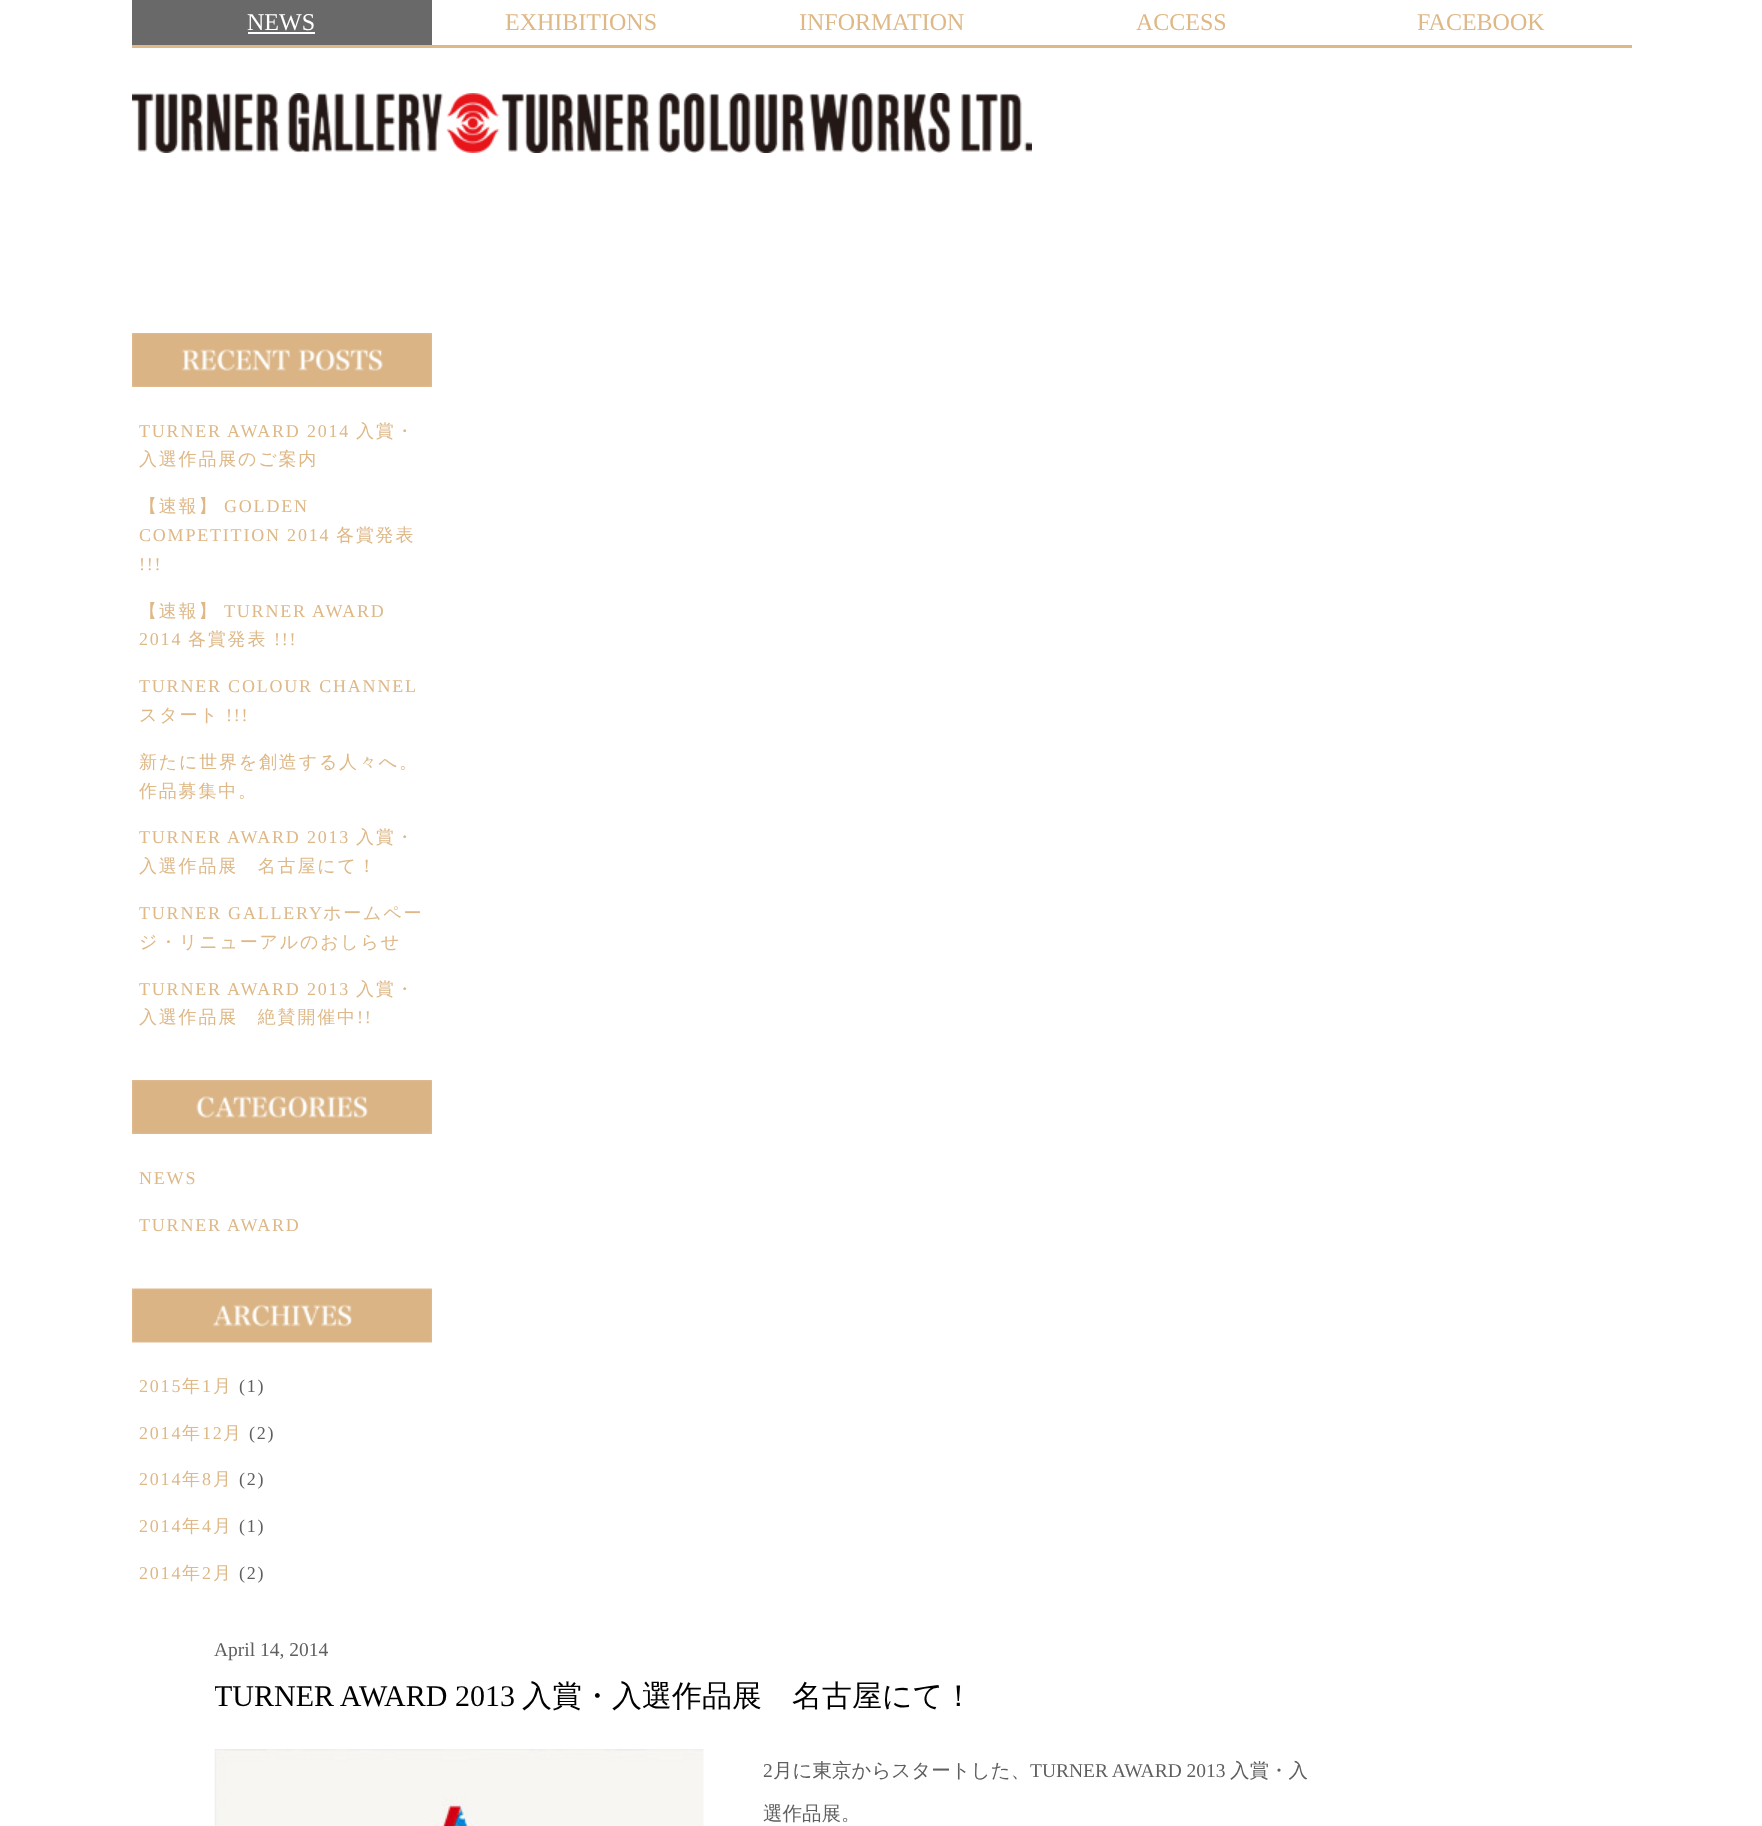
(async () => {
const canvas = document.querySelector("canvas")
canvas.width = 1762
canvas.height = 1826
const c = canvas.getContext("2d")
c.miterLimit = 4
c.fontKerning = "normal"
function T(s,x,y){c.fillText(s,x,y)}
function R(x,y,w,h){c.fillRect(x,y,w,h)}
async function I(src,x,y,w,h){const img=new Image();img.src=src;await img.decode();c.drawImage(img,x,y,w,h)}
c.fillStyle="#fff"
R(0,0,1762,1826)
c.fillStyle="#deb887"
R(132,45,1500,3)
c.fillStyle="#696969"
R(132,0,300,45)
c.font="24px Liberation Serif"
c.fillStyle="#fff"
T("NEWS",247,30)
R(248,32,67,2)
c.fillStyle="#deb887"
T("EXHIBITIONS",505,30)
T("INFORMATION",799,30)
T("ACCESS",1136,30)
T("FACEBOOK",1417,30)
await I("1.png",132,93,900,60)
await I("2.png",132,333,300,54)
c.letterSpacing="1.8px"
c.font="18px Liberation Serif"
T("TURNER AWARD 2014",139,437)
c.font="500 18px WenQuanYi Zen Hei"
T("入賞・",356,437)
T("入選作品展のご案内",139,465)
T("【速報】",139,512)
c.font="18px Liberation Serif"
T("GOLDEN",224,512)
T("COMPETITION 2014",139,541)
c.font="500 18px WenQuanYi Zen Hei"
T("各賞発表",336,541)
c.font="18px Liberation Serif"
T("!!!",139,570)
c.font="500 18px WenQuanYi Zen Hei"
T("【速報】",139,617)
c.font="18px Liberation Serif"
T("TURNER AWARD",224,617)
T("2014",139,645)
c.font="500 18px WenQuanYi Zen Hei"
T("各賞発表",188,645)
c.font="18px Liberation Serif"
T("!!!",274,645)
T("TURNER COLOUR CHANNEL",139,692)
c.font="500 18px WenQuanYi Zen Hei"
T("スタート",139,721)
c.font="18px Liberation Serif"
T("!!!",226,721)
c.font="500 18px WenQuanYi Zen Hei"
T("新たに世界を創造する人々へ。",139,768)
T("作品募集中。",139,797)
c.font="18px Liberation Serif"
T("TURNER AWARD 2013",139,843)
c.font="500 18px WenQuanYi Zen Hei"
T("入賞・",356,843)
T("入選作品展　名古屋にて！",139,872)
c.font="18px Liberation Serif"
T("TURNER GALLERY",139,919)
c.font="500 18px WenQuanYi Zen Hei"
T("ホームペー",323,919)
T("ジ・リニューアルのおしらせ",139,948)
c.font="18px Liberation Serif"
T("TURNER AWARD 2013",139,995)
c.font="500 18px WenQuanYi Zen Hei"
T("入賞・",356,995)
T("入選作品展　絶賛開催中",139,1023)
c.font="18px Liberation Serif"
T("!!",357,1023)
await I("3.png",132,1080,300,54)
T("NEWS",139,1184)
T("TURNER AWARD",139,1231)
await I("4.png",132,1288,300,55)
T("2015",139,1392)
c.font="500 18px WenQuanYi Zen Hei"
T("年",182,1392)
c.font="18px Liberation Serif"
T("1",202,1392)
c.font="500 18px WenQuanYi Zen Hei"
T("月",213,1392)
c.font="18px Liberation Serif"
c.fillStyle="#5f5f5f"
T("(1)",239,1392)
c.fillStyle="#deb887"
T("2014",139,1439)
c.font="500 18px WenQuanYi Zen Hei"
T("年",182,1439)
c.font="18px Liberation Serif"
T("12",202,1439)
c.font="500 18px WenQuanYi Zen Hei"
T("月",223,1439)
c.font="18px Liberation Serif"
c.fillStyle="#5f5f5f"
T("(2)",249,1439)
c.fillStyle="#deb887"
T("2014",139,1485)
c.font="500 18px WenQuanYi Zen Hei"
T("年",182,1485)
c.font="18px Liberation Serif"
T("8",202,1485)
c.font="500 18px WenQuanYi Zen Hei"
T("月",213,1485)
c.font="18px Liberation Serif"
c.fillStyle="#5f5f5f"
T("(2)",239,1485)
c.fillStyle="#deb887"
T("2014",139,1532)
c.font="500 18px WenQuanYi Zen Hei"
T("年",182,1532)
c.font="18px Liberation Serif"
T("4",202,1532)
c.font="500 18px WenQuanYi Zen Hei"
T("月",213,1532)
c.font="18px Liberation Serif"
c.fillStyle="#5f5f5f"
T("(1)",239,1532)
c.fillStyle="#deb887"
T("2014",139,1579)
c.font="500 18px WenQuanYi Zen Hei"
T("年",182,1579)
c.font="18px Liberation Serif"
T("2",202,1579)
c.font="500 18px WenQuanYi Zen Hei"
T("月",213,1579)
c.font="18px Liberation Serif"
c.fillStyle="#5f5f5f"
T("(2)",239,1579)
c.letterSpacing="0px"
c.font="19.5px Liberation Serif"
T("April 14, 2014",214,1656)
c.save()
c.beginPath()
c.rect(215,1629,1110,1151)
c.clip()
c.font="30px Liberation Serif"
c.fillStyle="#000"
T("TURNER AWARD 2013",214,1706)
c.restore()
c.font="500 30px WenQuanYi Zen Hei"
c.fillStyle="#000"
T("入賞・入選作品展　名古屋にて！",522,1706)
await I("5.png",214,1749,490,77)
c.font="19.5px Liberation Serif"
c.fillStyle="#5f5f5f"
T("2",763,1777)
c.font="500 19.5px WenQuanYi Zen Hei"
T("月に東京からスタートした、",773,1777)
c.font="19.5px Liberation Serif"
T("TURNER AWARD 2013",1030,1777)
c.font="500 19.5px WenQuanYi Zen Hei"
T("入賞・入",1230,1777)
T("選作品展。",763,1820)
})()
